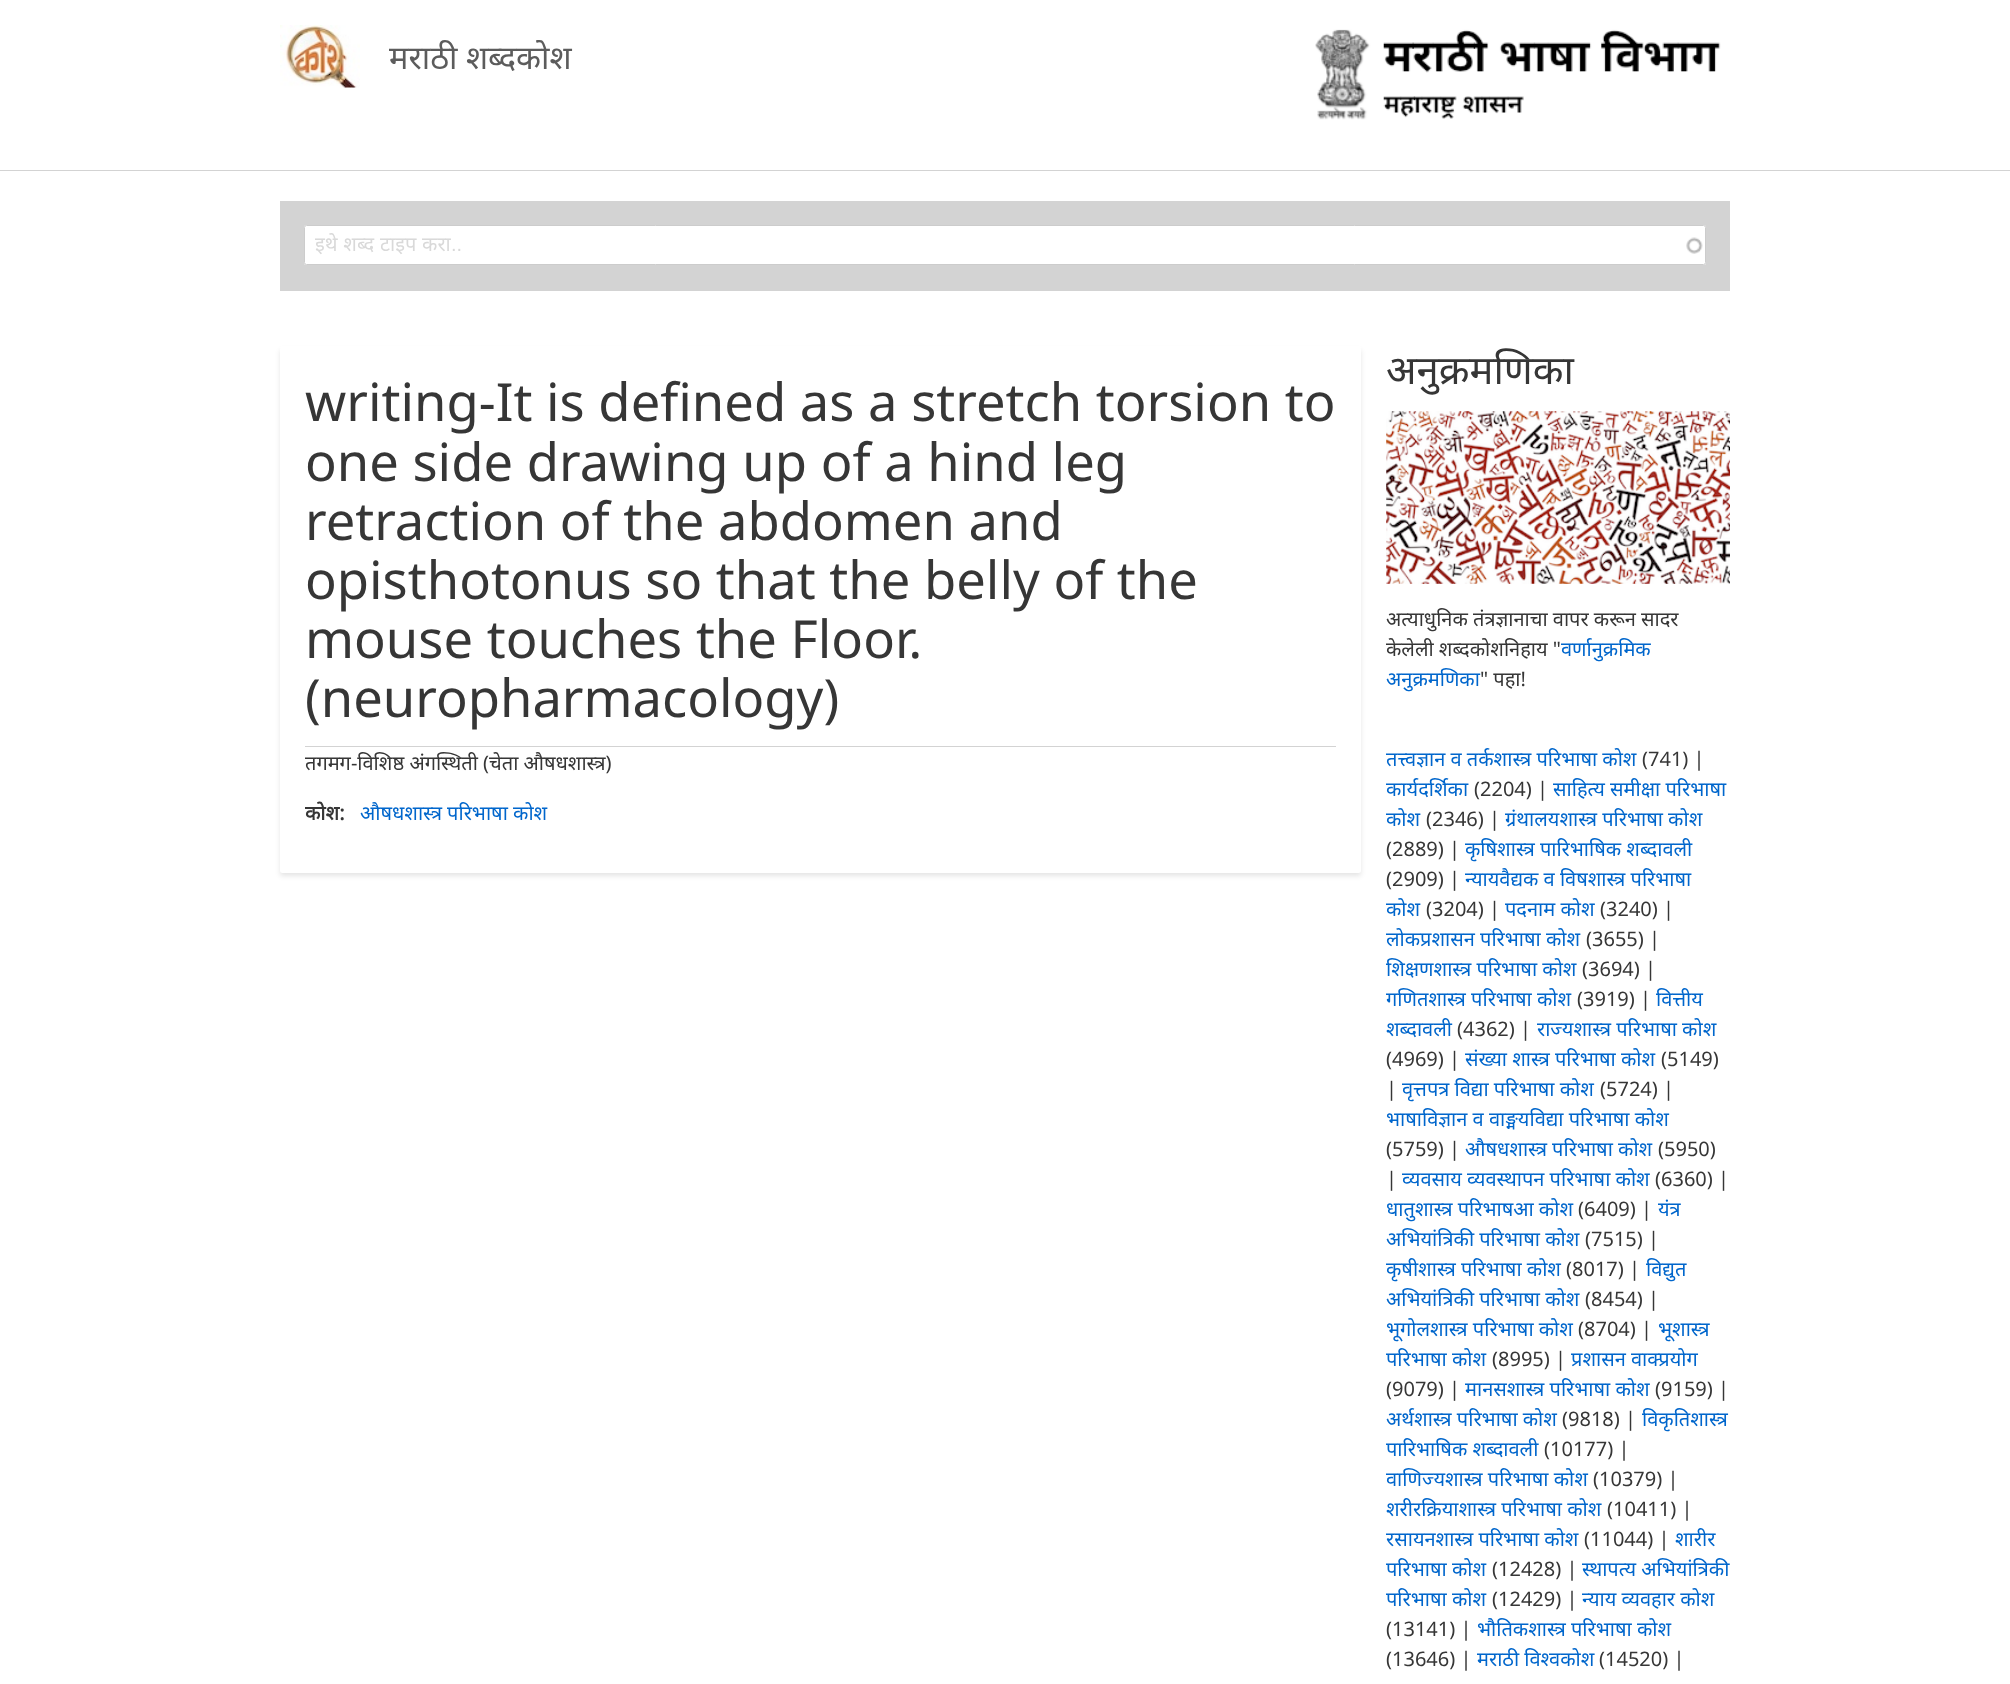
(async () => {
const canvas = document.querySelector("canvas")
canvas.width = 2010
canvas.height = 1684
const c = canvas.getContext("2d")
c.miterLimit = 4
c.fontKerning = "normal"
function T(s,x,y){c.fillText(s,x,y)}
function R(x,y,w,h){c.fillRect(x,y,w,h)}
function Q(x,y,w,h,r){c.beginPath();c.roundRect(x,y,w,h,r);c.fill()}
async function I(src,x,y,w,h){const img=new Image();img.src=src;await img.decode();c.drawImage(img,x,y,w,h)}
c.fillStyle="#fff"
R(0,0,2010,1684)
c.fillStyle="#d3d3d3"
R(0,170,2010,1)
await I("1.png",280,25,80,63)
c.font="32.5px Noto Sans"
c.fillStyle="#5c5c5c"
T("मराठी शब्दकोश",389,69)
await I("2.png",1315,29,406,91)
c.fillStyle="#d3d3d3"
R(280,201,1450,90)
c.fillStyle="#fff"
Q(304,225,1402,40,2.5)
await I("3.png",1686,237,17,17)
c.beginPath()
c.roundRect(304.5,225.5,1401,39,2)
c.strokeStyle="#ccc"
c.stroke()
c.wordSpacing="0.5px"
c.font="20px 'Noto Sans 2'"
c.fillStyle="#d9d9d9"
T("इथे शब्द टाइप करा",315,251)
c.wordSpacing="0px"
c.font="20px Liberation Sans"
T("..",451,251)
c.fillStyle="#0000001a"
c.filter="blur(2.5px)"
c.beginPath()
c.roundRect(280,350,1081,526,2.5)
c.fill()
c.filter="none"
c.fillStyle="#fff"
Q(280,346,1081,527,2.5)
c.fillStyle="#d3d3d3"
R(305,746,1031,1)
c.font="52.5px Noto Sans"
c.fillStyle="#363636"
T("writing-It is defined as a stretch torsion to",305,421)
T("one side drawing up of a hind leg",305,481)
T("retraction of the abdomen and",305,540)
T("opisthotonus so that the belly of the",305,599)
T("mouse touches the Floor.",305,658)
T("(neuropharmacology)",305,717)
c.font="20px Noto Sans"
T("तगमग-विशिष्ठ अंगस्थिती (चेता औषधशास्त्र)",305,770)
c.font="bold 20px Noto Sans"
T("कोश:",305,820)
c.font="20px Noto Sans"
c.fillStyle="#06c"
T("औषधशास्त्र परिभाषा कोश",360,820)
c.font="40px Noto Sans"
c.fillStyle="#363636"
T("अनुक्रमणिका",1386,384)
await I("4.png",1386,411,344,173)
c.font="20px Noto Sans"
T("अत्याधुनिक तंत्रज्ञानाचा वापर करून सादर",1386,626)
T("केलेली शब्दकोशनिहाय \"",1386,656)
c.fillStyle="#06c"
T("वर्णानुक्रमिक",1561,656)
T("अनुक्रमणिका",1386,686)
c.fillStyle="#363636"
T("\" पहा!",1480,686)
c.fillStyle="#06c"
T("तत्त्वज्ञान व तर्कशास्त्र परिभाषा कोश",1386,766)
c.fillStyle="#363636"
T("(741) |",1642,766)
c.fillStyle="#06c"
T("कार्यदर्शिका",1386,796)
c.fillStyle="#363636"
T("(2204) |",1474,796)
c.fillStyle="#06c"
T("साहित्य समीक्षा परिभाषा",1553,796)
T("कोश",1386,826)
c.fillStyle="#363636"
T("(2346) |",1426,826)
c.fillStyle="#06c"
T("ग्रंथालयशास्त्र परिभाषा कोश",1505,826)
c.fillStyle="#363636"
T("(2889) |",1386,856)
c.fillStyle="#06c"
T("कृषिशास्त्र पारिभाषिक शब्दावली",1465,856)
c.fillStyle="#363636"
T("(2909) |",1386,886)
c.fillStyle="#06c"
T("न्यायवैद्यक व विषशास्त्र परिभाषा",1465,886)
T("कोश",1386,916)
c.fillStyle="#363636"
T("(3204) |",1426,916)
c.fillStyle="#06c"
T("पदनाम कोश",1505,916)
c.fillStyle="#363636"
T("(3240) |",1600,916)
c.fillStyle="#06c"
T("लोकप्रशासन परिभाषा कोश",1386,946)
c.fillStyle="#363636"
T("(3655) |",1586,946)
c.fillStyle="#06c"
T("शिक्षणशास्त्र परिभाषा कोश",1386,976)
c.fillStyle="#363636"
T("(3694) |",1582,976)
c.fillStyle="#06c"
T("गणितशास्त्र परिभाषा कोश",1386,1006)
c.fillStyle="#363636"
T("(3919) |",1577,1006)
c.fillStyle="#06c"
T("वित्तीय",1656,1006)
T("शब्दावली",1386,1036)
c.fillStyle="#363636"
T("(4362) |",1457,1036)
c.fillStyle="#06c"
T("राज्यशास्त्र परिभाषा कोश",1537,1036)
c.fillStyle="#363636"
T("(4969) |",1386,1066)
c.fillStyle="#06c"
T("संख्या शास्त्र परिभाषा कोश",1465,1066)
c.fillStyle="#363636"
T("(5149)",1661,1066)
T("|",1386,1096)
c.fillStyle="#06c"
T("वृत्तपत्र विद्या परिभाषा कोश",1402,1096)
c.fillStyle="#363636"
T("(5724) |",1600,1096)
c.fillStyle="#06c"
T("भाषाविज्ञान व वाङ्मयविद्या परिभाषा कोश",1386,1126)
c.fillStyle="#363636"
T("(5759) |",1386,1156)
c.fillStyle="#06c"
T("औषधशास्त्र परिभाषा कोश",1465,1156)
c.fillStyle="#363636"
T("(5950)",1658,1156)
T("|",1386,1186)
c.fillStyle="#06c"
T("व्यवसाय व्यवस्थापन परिभाषा कोश",1402,1186)
c.fillStyle="#363636"
T("(6360) |",1655,1186)
c.fillStyle="#06c"
T("धातुशास्त्र परिभाषआ कोश",1386,1216)
c.fillStyle="#363636"
T("(6409) |",1578,1216)
c.fillStyle="#06c"
T("यंत्र",1658,1216)
T("अभियांत्रिकी परिभाषा कोश",1386,1246)
c.fillStyle="#363636"
T("(7515) |",1585,1246)
c.fillStyle="#06c"
T("कृषीशास्त्र परिभाषा कोश",1386,1276)
c.fillStyle="#363636"
T("(8017) |",1566,1276)
c.fillStyle="#06c"
T("विद्युत",1646,1276)
T("अभियांत्रिकी परिभाषा कोश",1386,1306)
c.fillStyle="#363636"
T("(8454) |",1585,1306)
c.fillStyle="#06c"
T("भूगोलशास्त्र परिभाषा कोश",1386,1336)
c.fillStyle="#363636"
T("(8704) |",1578,1336)
c.fillStyle="#06c"
T("भूशास्त्र",1658,1336)
T("परिभाषा कोश",1386,1366)
c.fillStyle="#363636"
T("(8995) |",1492,1366)
c.fillStyle="#06c"
T("प्रशासन वाक्प्रयोग",1571,1366)
c.fillStyle="#363636"
T("(9079) |",1386,1396)
c.fillStyle="#06c"
T("मानसशास्त्र परिभाषा कोश",1465,1396)
c.fillStyle="#363636"
T("(9159) |",1655,1396)
c.fillStyle="#06c"
T("अर्थशास्त्र परिभाषा कोश",1386,1426)
c.fillStyle="#363636"
T("(9818) |",1562,1426)
c.fillStyle="#06c"
T("विकृतिशास्त्र",1642,1426)
T("पारिभाषिक शब्दावली",1386,1456)
c.fillStyle="#363636"
T("(10177) |",1544,1456)
c.fillStyle="#06c"
T("वाणिज्यशास्त्र परिभाषा कोश",1386,1486)
c.fillStyle="#363636"
T("(10379) |",1593,1486)
c.fillStyle="#06c"
T("शरीरक्रियाशास्त्र परिभाषा कोश",1386,1516)
c.fillStyle="#363636"
T("(10411) |",1607,1516)
c.fillStyle="#06c"
T("रसायनशास्त्र परिभाषा कोश",1386,1546)
c.fillStyle="#363636"
T("(11044) |",1584,1546)
c.fillStyle="#06c"
T("शारीर",1675,1546)
T("परिभाषा कोश",1386,1576)
c.fillStyle="#363636"
T("(12428) |",1492,1576)
c.fillStyle="#06c"
T("स्थापत्य अभियांत्रिकी",1582,1576)
T("परिभाषा कोश",1386,1606)
c.fillStyle="#363636"
T("(12429) |",1492,1606)
c.fillStyle="#06c"
T("न्याय व्यवहार कोश",1582,1606)
c.fillStyle="#363636"
T("(13141) |",1386,1636)
c.fillStyle="#06c"
T("भौतिकशास्त्र परिभाषा कोश",1477,1636)
c.fillStyle="#363636"
T("(13646) |",1386,1666)
c.fillStyle="#06c"
T("मराठी विश्वकोश",1477,1666)
c.fillStyle="#363636"
T("(14520) |",1599,1666)
})()
